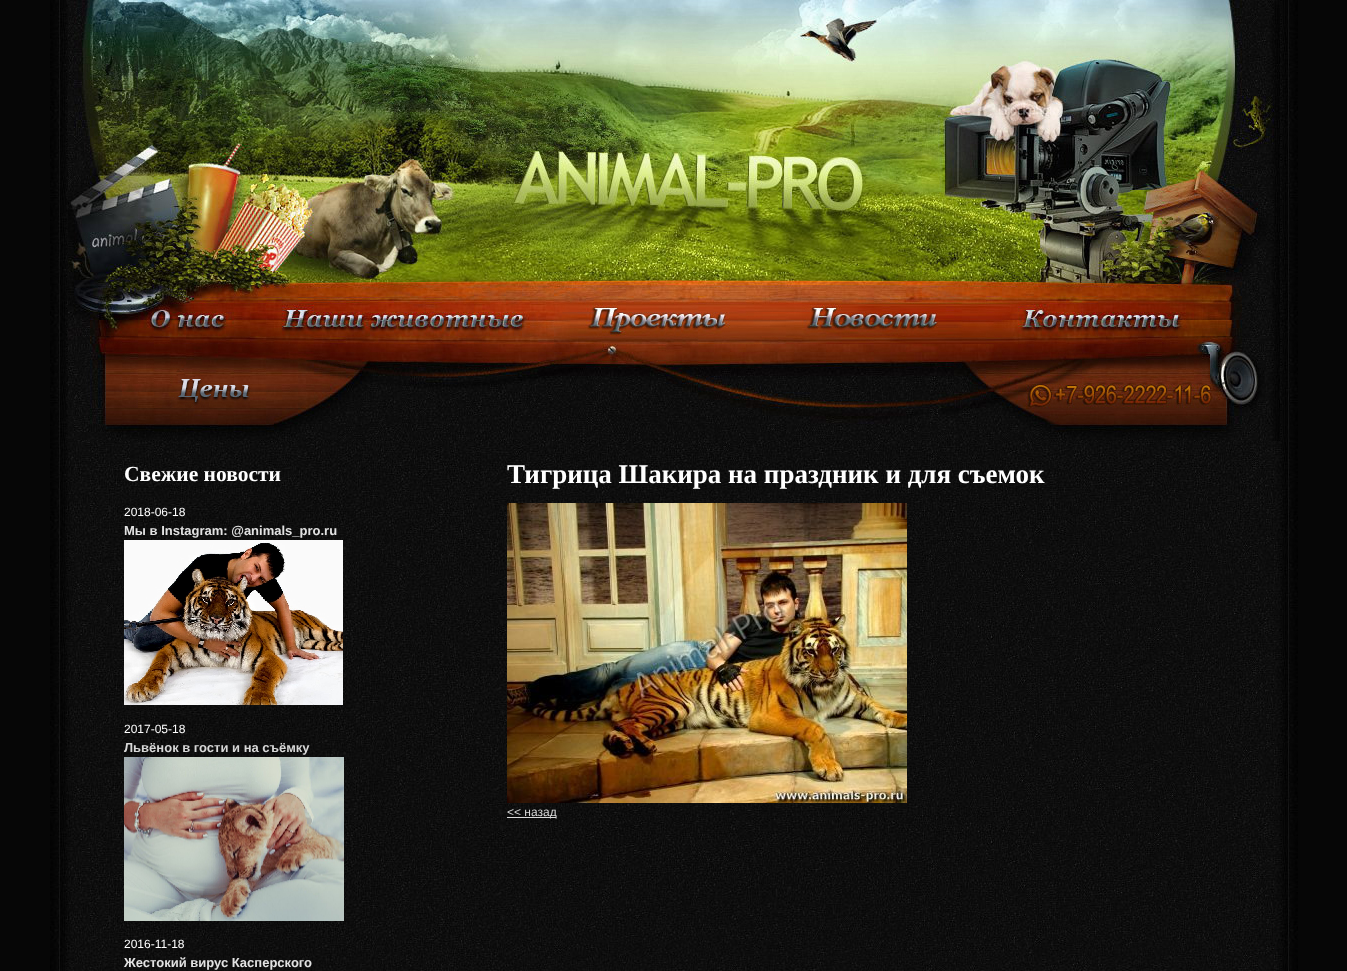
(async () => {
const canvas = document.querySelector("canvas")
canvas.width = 1347
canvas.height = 971
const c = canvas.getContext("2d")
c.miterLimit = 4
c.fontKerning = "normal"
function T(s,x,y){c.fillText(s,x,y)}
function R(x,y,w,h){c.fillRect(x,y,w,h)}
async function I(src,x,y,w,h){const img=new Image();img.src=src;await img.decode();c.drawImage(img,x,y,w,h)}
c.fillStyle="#060606"
R(0,0,1347,971)
await I("1.png",50,0,1248,971)
await I("2.png",68,0,1212,441)
c.font="bold 21.5px Liberation Serif"
c.fillStyle="#fff"
T("Свежие новости",124,481)
c.font="12px Liberation Sans"
T("2018-06-18",124,516)
c.font="bold 13px Liberation Sans"
c.fillStyle="#e2e2e2"
T("Мы в Instagram: @animals_pro.ru",124,535)
await I("3.png",124,540,219,165)
c.font="12px Liberation Sans"
c.fillStyle="#fff"
T("2017-05-18",124,733)
c.font="bold 13px Liberation Sans"
c.fillStyle="#d7d7d7"
T("Львёнок в гости и на съёмку",124,752)
await I("4.png",124,757,220,164)
c.font="12px Liberation Sans"
c.fillStyle="#fff"
T("2016-11-18",124,948)
c.font="bold 13px Liberation Sans"
c.fillStyle="#e2e2e2"
T("Жестокий вирус Касперского",124,967)
c.font="bold 27px Liberation Serif"
c.fillStyle="#fff"
T("Тигрица Шакира на праздник и для съемок",507,483)
await I("5.png",507,503,400,300)
c.fillStyle="#dadada"
R(507,817,49,1)
c.font="12px Liberation Sans"
c.fillStyle="#d7d7d7"
T("<< назад",507,816)
})()
